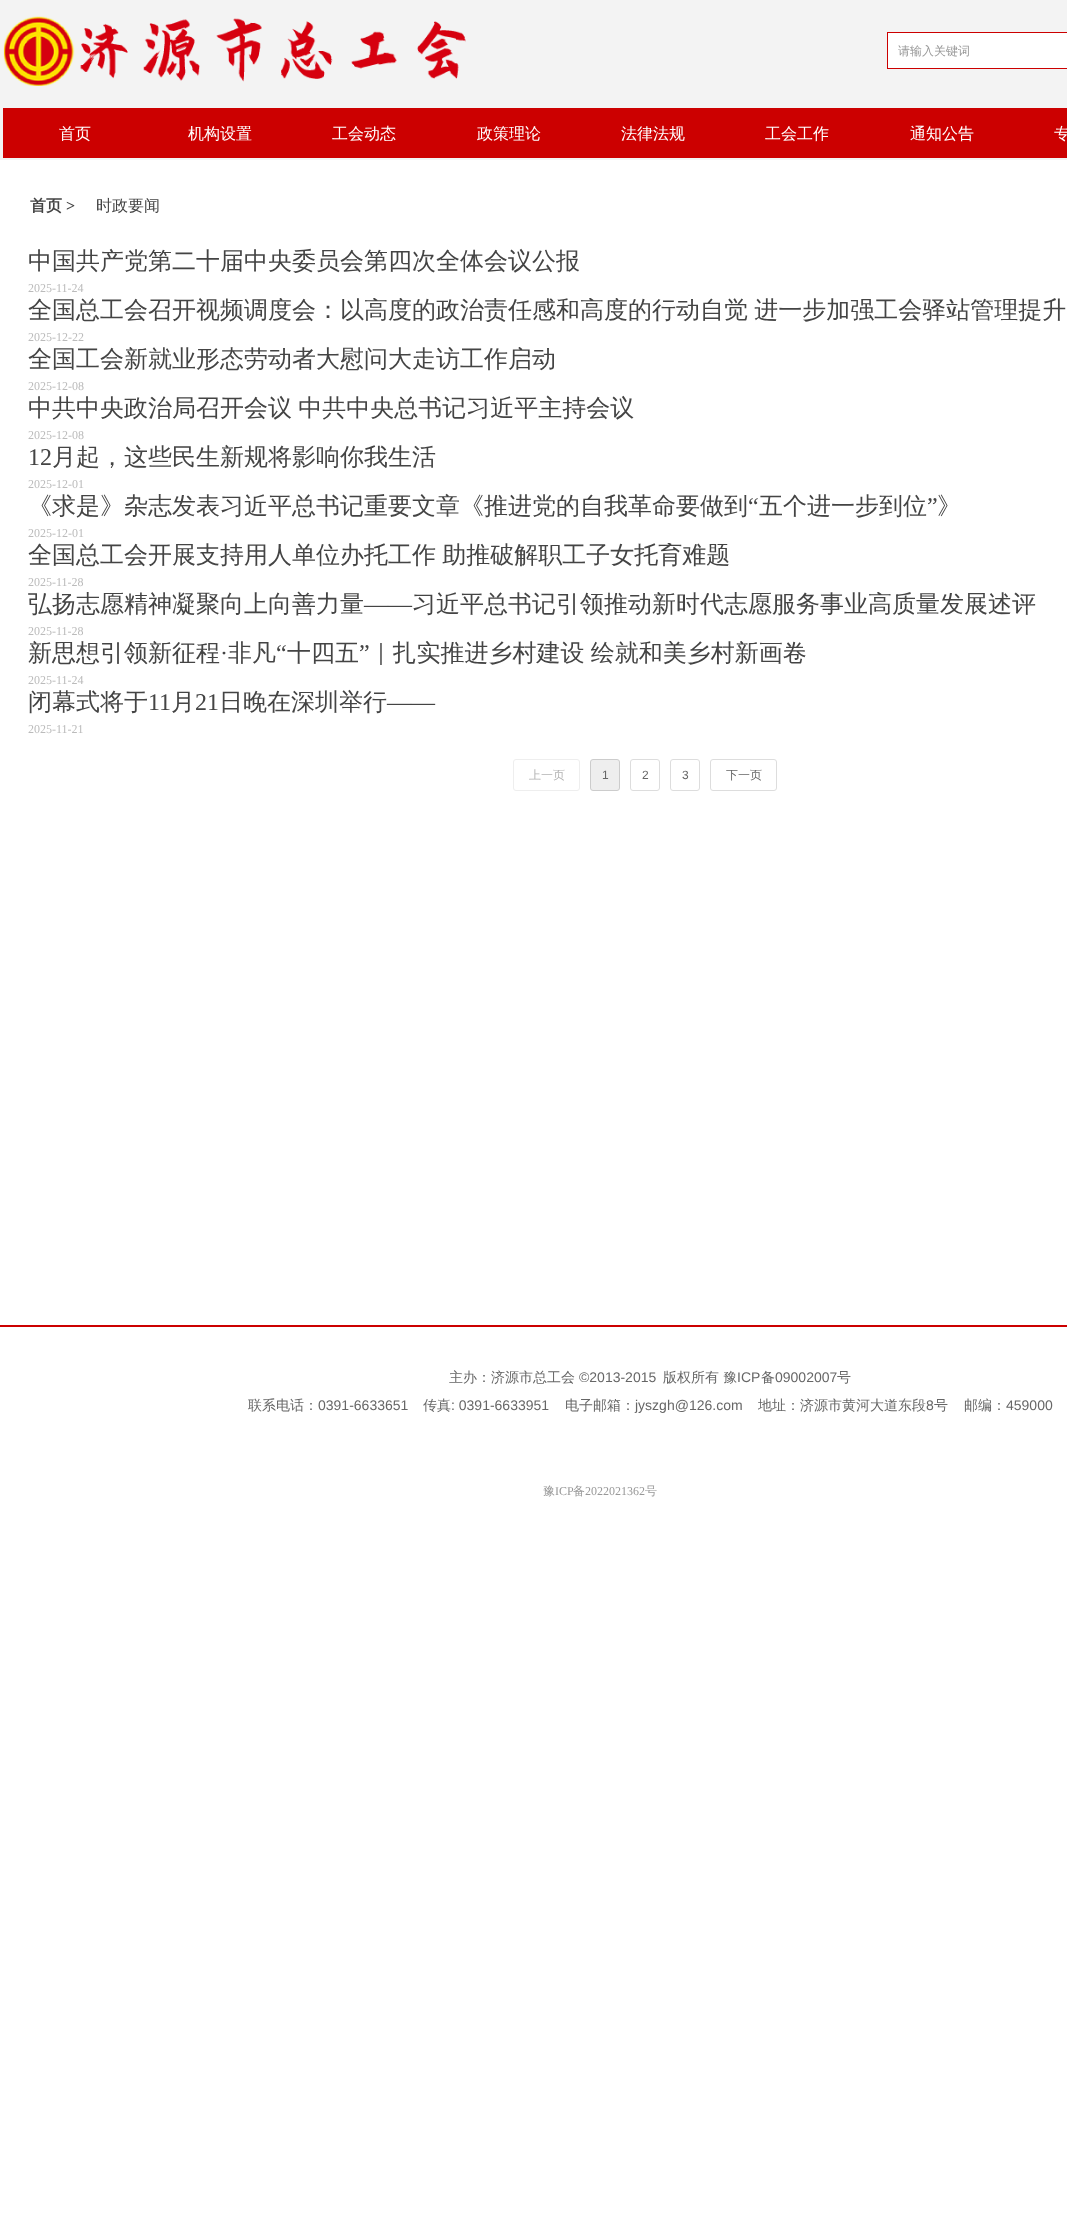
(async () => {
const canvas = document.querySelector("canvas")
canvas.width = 1067
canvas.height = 2237
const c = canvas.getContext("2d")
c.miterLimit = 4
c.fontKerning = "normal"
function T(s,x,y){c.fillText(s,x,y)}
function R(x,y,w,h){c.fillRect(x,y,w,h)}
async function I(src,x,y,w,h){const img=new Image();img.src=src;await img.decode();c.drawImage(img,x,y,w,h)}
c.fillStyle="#fff"
R(0,0,1067,2237)
c.fillStyle="#f3f3f3"
R(0,0,1067,160)
await I("1.png",3,16,463,70)
c.strokeStyle="#c00"
c.strokeRect(887.5,32.5,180,36)
c.fillStyle="#fff"
R(888,33,179,35)
c.font="500 12px WenQuanYi Zen Hei"
c.fillStyle="#989898"
T("请输入关键词",898,55)
c.fillStyle="#c00"
R(3,108,1064,50)
c.font="500 16px WenQuanYi Zen Hei"
c.fillStyle="#fff"
T("首页",59,139)
T("机构设置",188,139)
T("工会动态",332,139)
T("政策理论",477,139)
T("法律法规",621,139)
T("工会工作",765,139)
T("通知公告",910,139)
T("专",1054,139)
c.font="bold 16px WenQuanYi Zen Hei"
c.fillStyle="#444"
T("首页",30,211)
c.font="bold 16px Liberation Serif"
T(">",66,211)
c.font="500 16px WenQuanYi Zen Hei"
T("时政要闻",96,211)
c.font="500 24px WenQuanYi Zen Hei"
T("中国共产党第二十届中央委员会第四次全体会议公报",28,269)
c.font="12px Liberation Serif"
c.fillStyle="#bbb"
T("2025-11-24",28,292)
c.save()
c.beginPath()
c.rect(28,298,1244,24)
c.clip()
c.wordSpacing="-1px"
c.font="500 24px WenQuanYi Zen Hei"
c.fillStyle="#444"
T("全国总工会召开视频调度会：以高度的政治责任感和高度的行动自觉 进一步加强工会驿站管理提升",28,318)
c.restore()
T("2025-12-22",28,341)
c.save()
c.beginPath()
c.rect(28,347,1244,24)
c.clip()
c.font="500 24px WenQuanYi Zen Hei"
c.fillStyle="#444"
T("全国工会新就业形态劳动者大慰问大走访工作启动",28,367)
c.restore()
T("2025-12-08",28,390)
c.wordSpacing="-1px"
c.font="500 24px WenQuanYi Zen Hei"
c.fillStyle="#444"
T("中共中央政治局召开会议 中共中央总书记习近平主持会议",28,416)
c.wordSpacing="0px"
c.font="12px Liberation Serif"
c.fillStyle="#bbb"
T("2025-12-08",28,439)
c.font="24px Liberation Serif"
c.fillStyle="#444"
T("12",28,465)
c.font="500 24px WenQuanYi Zen Hei"
T("月起，这些民生新规将影响你我生活",52,465)
c.font="12px Liberation Serif"
c.fillStyle="#bbb"
T("2025-12-01",28,488)
c.font="500 24px WenQuanYi Zen Hei"
c.fillStyle="#444"
T("《求是》杂志发表习近平总书记重要文章《推进党的自我革命要做到",28,514)
c.font="24px Liberation Serif"
T("“",748,514)
c.font="500 24px WenQuanYi Zen Hei"
T("五个进一步到位",759,514)
c.font="24px Liberation Serif"
T("”",927,514)
c.font="500 24px WenQuanYi Zen Hei"
T("》",937,514)
c.font="12px Liberation Serif"
c.fillStyle="#bbb"
T("2025-12-01",28,537)
c.save()
c.beginPath()
c.rect(28,543,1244,24)
c.clip()
c.wordSpacing="-1px"
c.font="500 24px WenQuanYi Zen Hei"
c.fillStyle="#444"
T("全国总工会开展支持用人单位办托工作 助推破解职工子女托育难题",28,563)
c.restore()
T("2025-11-28",28,586)
c.font="500 24px WenQuanYi Zen Hei"
c.fillStyle="#444"
T("弘扬志愿精神凝聚向上向善力量",28,612)
c.font="24px Liberation Serif"
T("——",364,612)
c.save()
c.beginPath()
c.rect(28,592,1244,24)
c.clip()
c.font="500 24px WenQuanYi Zen Hei"
T("习近平总书记引领推动新时代志愿服务事业高质量发展述评",412,612)
c.restore()
c.font="12px Liberation Serif"
c.fillStyle="#bbb"
T("2025-11-28",28,635)
c.font="500 24px WenQuanYi Zen Hei"
c.fillStyle="#444"
T("新思想引领新征程",28,661)
T("非凡",228,661)
c.font="24px Liberation Serif"
T("“",276,661)
c.font="500 24px WenQuanYi Zen Hei"
T("十四五",287,661)
c.font="24px Liberation Serif"
T("”",359,661)
c.save()
c.beginPath()
c.rect(28,641,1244,24)
c.clip()
c.wordSpacing="-1px"
c.font="500 24px WenQuanYi Zen Hei"
T("｜扎实推进乡村建设 绘就和美乡村新画卷",369,661)
c.restore()
T("·",220,661)
c.font="12px Liberation Serif"
c.fillStyle="#bbb"
T("2025-11-24",28,684)
c.font="500 24px WenQuanYi Zen Hei"
c.fillStyle="#444"
T("闭幕式将于",28,710)
c.font="24px Liberation Serif"
T("11",148,710)
c.font="500 24px WenQuanYi Zen Hei"
T("月",171,710)
c.font="24px Liberation Serif"
T("21",195,710)
c.font="500 24px WenQuanYi Zen Hei"
T("日晚在深圳举行",219,710)
c.font="24px Liberation Serif"
T("——",387,710)
c.font="12px Liberation Serif"
c.fillStyle="#bbb"
T("2025-11-21",28,733)
c.beginPath()
c.roundRect(513.5,759.5,66,31,2.5)
c.strokeStyle="#eee"
c.stroke()
c.font="500 12px WenQuanYi Zen Hei"
c.fillStyle="#b3b3b3"
T("上一页",529,779)
c.fillStyle="#eee"
c.beginPath()
c.roundRect(590.5,759.5,29,31,2.5)
c.fill()
c.strokeStyle="#ccc"
c.stroke()
c.font="12px Liberation Sans"
c.fillStyle="#666"
T("1",602,779)
c.beginPath()
c.roundRect(630.5,759.5,29,31,2.5)
c.strokeStyle="#ddd"
c.stroke()
T("2",642,779)
c.beginPath()
c.roundRect(670.5,759.5,29,31,2.5)
c.stroke()
T("3",682,779)
c.beginPath()
c.roundRect(710.5,759.5,66,31,2.5)
c.stroke()
c.font="500 12px WenQuanYi Zen Hei"
T("下一页",726,779)
c.fillStyle="#c00"
R(0,1325,1067,2)
c.font="500 14px WenQuanYi Zen Hei"
c.fillStyle="#666"
T("主办：济源市总工会",449,1382)
c.font="14px Liberation Sans"
T("©2013-2015",579,1382)
c.font="500 14px WenQuanYi Zen Hei"
T("版权所有 豫",663,1382)
c.font="14px Liberation Sans"
T("ICP",737,1382)
c.font="500 14px WenQuanYi Zen Hei"
T("备",761,1382)
c.font="14px Liberation Sans"
T("09002007",775,1382)
c.font="500 14px WenQuanYi Zen Hei"
T("号",837,1382)
T("联系电话：",248,1410)
c.font="14px Liberation Sans"
T("0391-6633651",318,1410)
c.font="500 14px WenQuanYi Zen Hei"
T("传真",423,1410)
c.font="14px Liberation Sans"
T(": 0391-6633951",451,1410)
c.font="500 14px WenQuanYi Zen Hei"
T("电子邮箱：",565,1410)
c.font="14px Liberation Sans"
T("jyszgh@126.com",635,1410)
c.font="500 14px WenQuanYi Zen Hei"
T("地址：济源市黄河大道东段",758,1410)
c.font="14px Liberation Sans"
T("8",926,1410)
c.font="500 14px WenQuanYi Zen Hei"
T("号",934,1410)
T("邮编：",964,1410)
c.font="14px Liberation Sans"
T("459000",1006,1410)
c.font="500 12px WenQuanYi Zen Hei"
c.fillStyle="#989898"
T("豫",543,1495)
c.font="12px Liberation Serif"
T("ICP",555,1495)
c.font="500 12px WenQuanYi Zen Hei"
T("备",573,1495)
c.font="12px Liberation Serif"
T("2022021362",585,1495)
c.font="500 12px WenQuanYi Zen Hei"
T("号",645,1495)
})()
